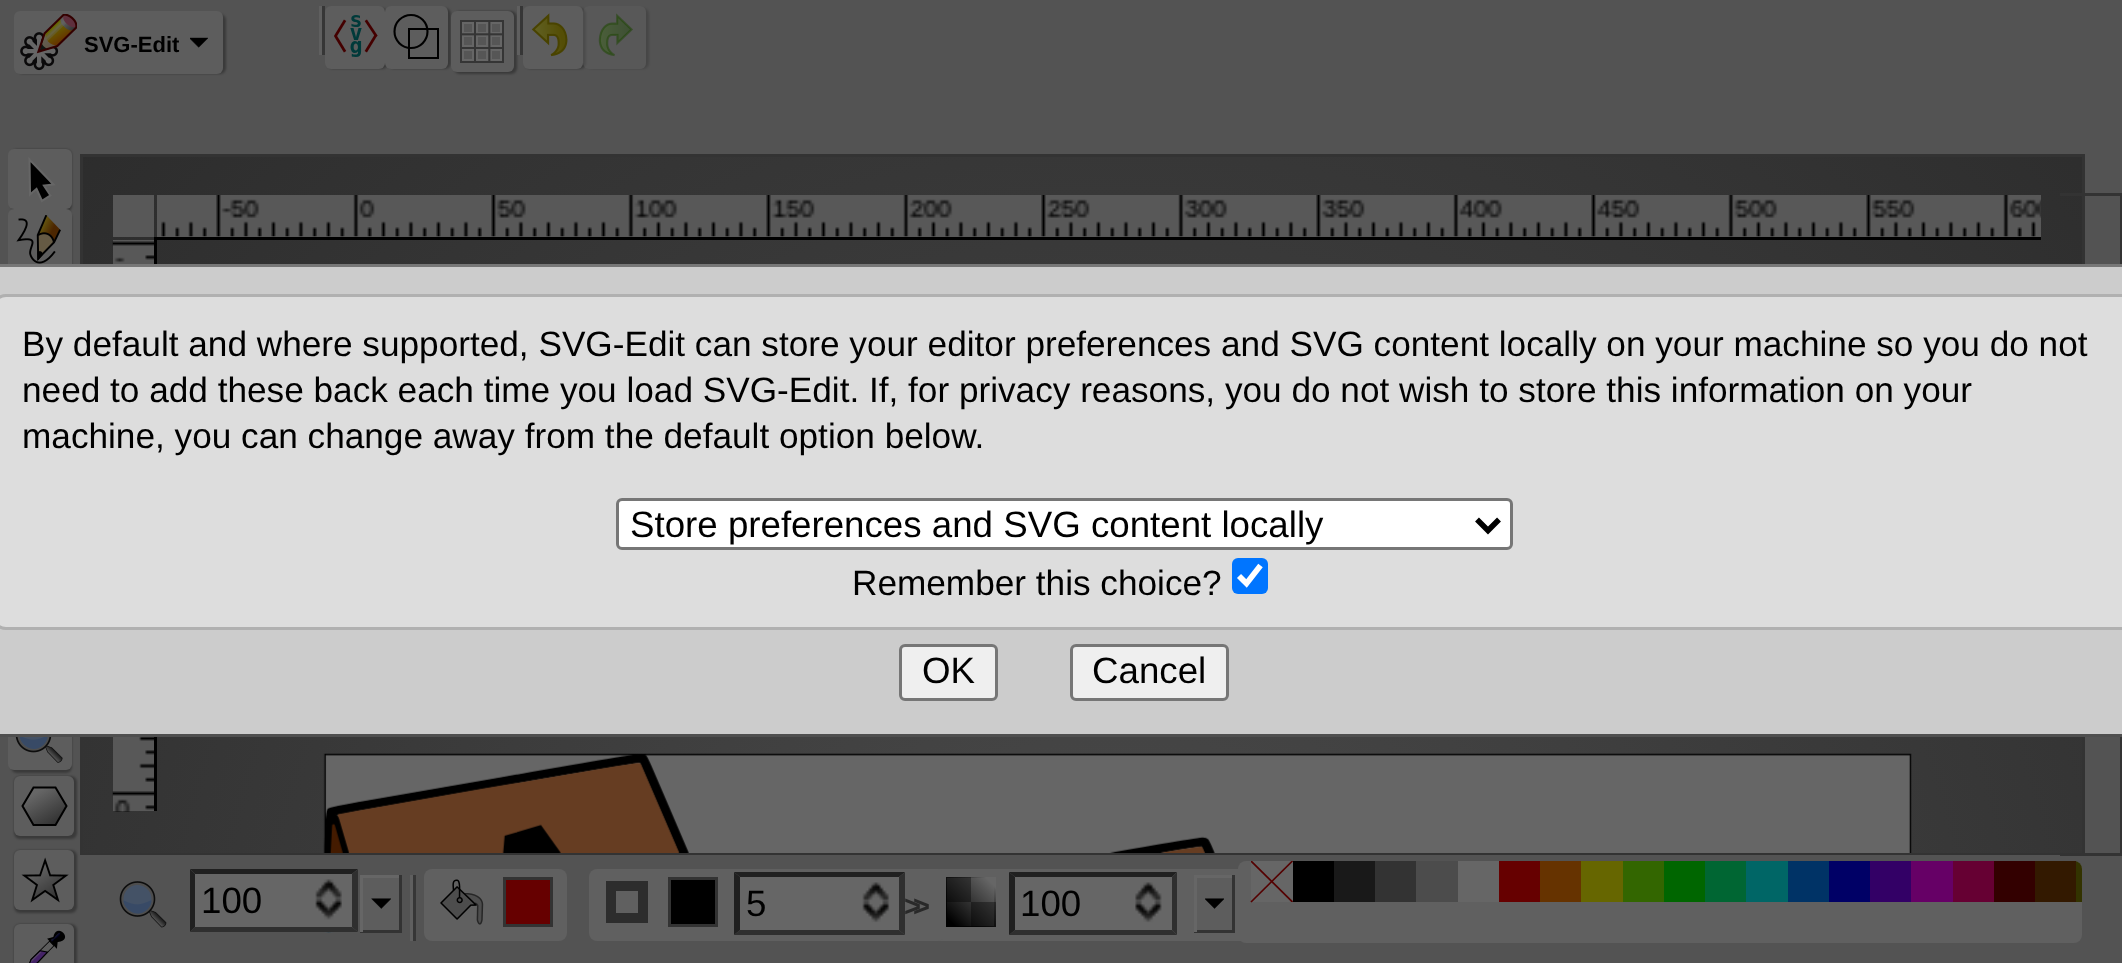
(async () => {
const canvas = document.querySelector("canvas")
canvas.width = 2122
canvas.height = 963
const c = canvas.getContext("2d")
c.miterLimit = 4
c.fontKerning = "normal"
function T(s,x,y){c.fillText(s,x,y)}
function R(x,y,w,h){c.fillRect(x,y,w,h)}
function Q(x,y,w,h,r){c.beginPath();c.roundRect(x,y,w,h,r);c.fill()}
async function I(src,x,y,w,h){const img=new Image();img.src=src;await img.decode();c.drawImage(img,x,y,w,h)}
let gradient, path
c.fillStyle="#535353"
R(0,0,2122,963)
c.fillStyle="#0000004d"
c.filter="blur(1px)"
c.beginPath()
c.roundRect(17,14,209,60,6)
c.fill()
c.filter="none"
c.fillStyle="#5d5d5d"
Q(14,11,209,63,6)
await I("1.png",20,14,57,57)
c.font="bold 22px Liberation Sans"
c.fillStyle="#000"
T("SVG-Edit",84,52)
await I("2.png",190,37,18,11)
c.fillStyle="#363636"
R(322,6,3,49)
c.fillStyle="#5f5f5f"
R(319,6,3,49)
c.fillStyle="#0000004d"
c.filter="blur(1px)"
c.beginPath()
c.roundRect(327,8,61,61,6)
c.fill()
c.filter="none"
c.fillStyle="#5d5d5d"
Q(325,6,60,63,6)
await I("3.png",334,15,44,42)
c.fillStyle="#0000004d"
c.filter="blur(1px)"
c.beginPath()
c.roundRect(388,8,63,61,6)
c.fill()
c.filter="none"
c.fillStyle="#5d5d5d"
Q(385,6,63,63,6)
c.beginPath()
c.arc(411,31.5,16.5,0,7)
c.strokeStyle="#000"
c.lineWidth=2.1
c.stroke()
c.lineWidth=2
c.strokeRect(409,29,29,29)
c.fillStyle="#0000004d"
c.filter="blur(1px)"
c.beginPath()
c.roundRect(454,11,63,63,6)
c.fill()
c.filter="none"
c.fillStyle="#5d5d5d"
Q(451,11,63,61,6)
await I("4.png",460,20,44,43)
c.fillStyle="#363636"
R(520,6,3,49)
c.fillStyle="#5f5f5f"
R(517,6,3,49)
c.fillStyle="#0000004d"
c.filter="blur(1px)"
c.beginPath()
c.roundRect(525,8,61,61,6)
c.fill()
c.filter="none"
c.fillStyle="#5d5d5d"
Q(523,6,60,63,6)
await I("5.png",531,13,37,44)
c.save()
path = new Path2D("M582 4h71v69h-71zm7 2h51c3.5 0 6 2.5 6 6v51c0 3.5-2.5 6-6 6h-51c-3.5 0-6-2.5-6-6v-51c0-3.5 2.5-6 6-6z")
c.clip(path,"evenodd")
c.fillStyle="#00000026"
c.filter="blur(1px)"
c.beginPath()
c.roundRect(586,8,63,61,6)
c.fill()
c.filter="none"
c.restore()
c.fillStyle="#5d5d5d80"
Q(583,6,63,63,6)
await I("6.png",598,13,35,44)
c.fillStyle="#0000004d"
c.filter="blur(1px)"
c.beginPath()
c.roundRect(11,149,61,63,6)
c.fill()
c.filter="none"
c.fillStyle="#5d5d5d"
Q(8,149,64,60,6)
c.fillStyle="#000"
path = new Path2D("M30 159v36l7-6l5 12l9-6l-7-10h9z")
c.fill(path)
path = new Path2D("M29.5 159.5l.5 35l6.5-5.5l5.5 12l8.5-5.5l-6.5-10l9.5-1z")
c.strokeStyle="#666"
c.lineWidth=2.1
c.stroke(path)
c.fillStyle="#0000004d"
c.filter="blur(1px)"
c.beginPath()
c.roundRect(11,212,61,60,6)
c.fill()
c.filter="none"
c.fillStyle="#5d5d5d"
Q(8,209,64,63,6)
await I("7.png",16,215,45,49)
c.fillStyle="#0000004d"
c.filter="blur(1px)"
c.beginPath()
c.roundRect(11,710,61,63,6)
c.fill()
c.filter="none"
c.fillStyle="#5d5d5d"
Q(8,710,64,60,6)
await I("8.png",15,737,48,26)
c.strokeStyle="#333"
c.lineWidth=3
c.strokeRect(81.5,155.5,2002,698)
c.fillStyle="#0000004d"
c.filter="blur(1px)"
c.beginPath()
c.roundRect(14,776,63,63,6)
c.fill()
c.filter="none"
c.fillStyle="#5d5d5d"
Q(14,776,60,60,6)
gradient = c.createLinearGradient(39,791,61,828)
gradient.addColorStop(0,"#666")
gradient.addColorStop(1,"#292929")
c.fillStyle = gradient
path = new Path2D("M34 825l-11-19l11-19h21l11 19l-11 19z")
c.fill(path)
path = new Path2D("M33.5 825l-11-19l11-18.5h22l11 18.5l-11 19z")
c.strokeStyle="#000"
c.lineWidth=2
c.stroke(path)
c.fillStyle="#0000004d"
c.filter="blur(1px)"
c.beginPath()
c.roundRect(14,850,63,63,6)
c.fill()
c.filter="none"
c.fillStyle="#5d5d5d"
Q(14,850,60,60,6)
await I("9.png",21,857,48,46)
c.fillStyle="#0000004d"
c.filter="blur(1px)"
c.beginPath()
c.roundRect(14,924,63,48,6)
c.fill()
c.filter="none"
c.fillStyle="#5d5d5d"
Q(14,924,60,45,6)
await I("10.png",29,930,37,33)
gradient = c.createRadialGradient(1117,1052,0,1117,1052,2750)
gradient.addColorStop(0,"#4b4b4b")
gradient.addColorStop(1,"#0e0e0e")
c.fillStyle = gradient
R(83,157,1999,696)
await I("11.png",323,753,1589,100)
c.fillStyle="#333"
R(2060,193,62,3)
R(2120,193,2,662)
R(2060,853,62,3)
c.fillStyle="#585858"
R(113,195,41,42)
R(157,195,1884,42)
c.fillStyle="#000"
R(154,237,1887,3)
c.fillStyle="#303030"
R(154,237,3,3)
await I("12.png",161,195,1880,42)
c.fillStyle="#585858"
R(113,240,41,571)
c.fillStyle="#000"
R(154,237,3,574)
await I("13.png",112,241,42,571)
await I("14.png",119,881,48,47)
c.fillStyle="#666"
R(190,869,168,63)
await I("15.png",315,879,27,54)
c.fillStyle="#202020"
path = new Path2D("M190 869h168l-6 5h-157z")
c.fill(path)
c.fillStyle="#2f2f2f"
path = new Path2D("M358 869v63l-6-5v-53z")
c.fill(path)
path = new Path2D("M358 932h-168l5-5h157z")
c.fill(path)
c.fillStyle="#202020"
path = new Path2D("M190 932v-63l5 5v53z")
c.fill(path)
c.font="36.7px Liberation Sans"
c.fillStyle="#000"
T("100",201,913)
c.fillStyle="#5d5d5d"
R(363,878,36,52)
c.fillStyle="#666"
R(360,875,42,3)
c.fillStyle="#333"
R(399,875,3,57)
R(360,930,42,3)
c.fillStyle="#666"
R(360,875,3,57)
await I("16.png",371,898,20,11)
c.fillStyle="#363636"
R(413,875,3,66)
c.fillStyle="#5f5f5f"
R(410,875,3,66)
c.fillStyle="#606060"
Q(424,869,143,72,8)
await I("17.png",440,879,44,46)
c.strokeStyle="#333"
c.lineWidth=3
c.strokeRect(504.5,878.5,47,47)
c.fillStyle="#600"
R(506,880,44,44)
c.fillStyle="#606060"
Q(932,869,317,72,8)
c.fillStyle="#666"
R(946,877,50,50)
c.fillStyle="#404040"
R(946,877,25,25)
R(971,902,25,25)
gradient = c.createLinearGradient(951,922,991,882)
gradient.addColorStop(0,"#000")
gradient.addColorStop(1,"#00000000")
c.fillStyle = gradient
R(946,877,50,50)
c.save()
c.beginPath()
c.rect(946,877,50,50)
c.clip()
gradient = c.createLinearGradient(951,922,991,882)
gradient.addColorStop(0,"#000")
gradient.addColorStop(1,"#00000000")
c.strokeStyle = gradient
c.lineWidth=2
c.strokeRect(946,877,49,50)
c.restore()
c.fillStyle="#606060"
Q(589,869,357,72,8)
c.strokeStyle="#2d2d2d"
c.lineWidth=10
c.strokeRect(611,886,32,32)
c.strokeStyle="#333"
c.lineWidth=3
c.strokeRect(669.5,878.5,47,47)
c.fillStyle="#000"
R(671,880,44,44)
c.fillStyle="#666"
R(734,872,171,63)
await I("18.png",862,882,28,41)
c.fillStyle="#202020"
path = new Path2D("M734 872h171l-6 5h-159z")
c.fill(path)
c.fillStyle="#2f2f2f"
path = new Path2D("M905 872v63l-6-5v-53z")
c.fill(path)
path = new Path2D("M905 935h-171l6-5h159z")
c.fill(path)
c.fillStyle="#202020"
path = new Path2D("M734 935v-63l6 5v53z")
c.fill(path)
c.fillStyle="#000"
T("5",746,916)
c.letterSpacing="-8px"
c.font="bold 29px Liberation Sans"
c.fillStyle="#292929"
T(">>",904,916)
c.fillStyle="#666"
R(1009,872,168,63)
await I("19.png",1135,882,27,41)
c.fillStyle="#202020"
path = new Path2D("M1009 872h168l-5 5h-157z")
c.fill(path)
c.fillStyle="#2f2f2f"
path = new Path2D("M1177 872v63l-5-5v-53z")
c.fill(path)
path = new Path2D("M1177 935h-168l6-5h157z")
c.fill(path)
c.fillStyle="#202020"
path = new Path2D("M1009 935v-63l6 5v53z")
c.fill(path)
c.letterSpacing="0px"
c.font="36.7px Liberation Sans"
c.fillStyle="#000"
T("100",1020,916)
c.fillStyle="#5d5d5d"
R(1197,878,35,52)
c.fillStyle="#666"
R(1194,875,41,3)
c.fillStyle="#333"
R(1232,875,3,57)
R(1194,930,41,3)
c.fillStyle="#666"
R(1194,875,3,57)
await I("20.png",1205,898,19,11)
c.fillStyle="#606060"
Q(1238,861,844,82,8)
c.fillStyle="#666"
R(1251,861,42,41)
c.save()
c.beginPath()
c.rect(1251,861,42,41)
c.clip()
path = new Path2D("M1251 861l41.5 41")
c.strokeStyle="#500"
c.lineWidth=1.7
c.stroke(path)
c.restore()
c.save()
c.beginPath()
c.roundRect(1238,861,844,82,8)
c.clip()
path = new Path2D("M1292.5 861l-41.5 41")
c.strokeStyle="#500"
c.lineWidth=1.7
c.stroke(path)
c.restore()
c.fillStyle="#000"
R(1293,861,41,41)
c.fillStyle="#191919"
R(1334,861,41,41)
c.fillStyle="#333"
R(1375,861,41,41)
c.fillStyle="#4c4c4c"
R(1416,861,42,41)
c.fillStyle="#666"
R(1458,861,41,41)
c.fillStyle="#600"
R(1499,861,41,41)
c.fillStyle="#630"
R(1540,861,41,41)
c.fillStyle="#660"
R(1581,861,42,41)
c.fillStyle="#360"
R(1623,861,41,41)
c.fillStyle="#060"
R(1664,861,41,41)
c.fillStyle="#063"
R(1705,861,41,41)
c.fillStyle="#066"
R(1746,861,42,41)
c.fillStyle="#036"
R(1788,861,41,41)
c.fillStyle="#006"
R(1829,861,41,41)
c.fillStyle="#306"
R(1870,861,41,41)
c.fillStyle="#606"
R(1911,861,42,41)
c.fillStyle="#603"
R(1953,861,41,41)
c.fillStyle="#300"
R(1994,861,41,41)
c.fillStyle="#331900"
R(2035,861,41,41)
c.save()
c.beginPath()
c.roundRect(1238,861,844,82,8)
c.clip()
c.fillStyle="#330"
R(2076,861,6,41)
c.restore()
c.fillStyle="#ccc"
R(0,264,2122,473)
path = new Path2D("M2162 269c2.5 2.5 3.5 5.5 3.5 9v445c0 3.5-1 6.5-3.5 9c-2.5 2.5-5.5 3.5-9 3.5h-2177.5c-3.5 0-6.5-1-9-3.5")
c.strokeStyle="#4f4f4f"
c.lineWidth=2.8
c.stroke(path)
path = new Path2D("M-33.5 732c-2.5-2.5-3.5-5.5-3.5-9v-445c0-3.5 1-6.5 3.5-9c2.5-2.5 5.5-3.5 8.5-3.5h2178c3.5 0 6.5 1 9 3.5")
c.strokeStyle="#777"
c.stroke(path)
c.fillStyle="#ddd"
c.beginPath()
c.roundRect(-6.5,295.5,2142,333,12.5)
c.fill()
c.strokeStyle="#b0b0b0"
c.lineWidth=3
c.stroke()
c.font="35.2px Liberation Sans"
c.fillStyle="#000"
T("By default and where supported, SVG-Edit can store your editor preferences and SVG content locally on your machine so you do not",22,356)
T("need to add these back each time you load SVG-Edit. If, for privacy reasons, you do not wish to store this information on your",22,402)
T("machine, you can change away from the default option below.",22,448)
c.fillStyle="#fff"
c.beginPath()
c.roundRect(617.5,499.5,894,49,4.5)
c.fill()
c.strokeStyle="#767676"
c.stroke()
path = new Path2D("M1477 519.5l11 11l11-11")
c.strokeStyle="#000"
c.lineWidth=5.5
c.stroke(path)
c.font="36.7px Liberation Sans"
c.fillStyle="#000"
T("Store preferences and SVG content locally",630,537)
c.font="35.2px Liberation Sans"
T("Remember this choice?",852,595)
c.fillStyle="#0075ff"
Q(1232,558,36,36,6)
path = new Path2D("M1239 576l7.5 7.5l14-18")
c.strokeStyle="#fff"
c.lineWidth=5.7
c.stroke(path)
c.fillStyle="#efefef"
c.beginPath()
c.roundRect(900.5,645.5,96,54,4.5)
c.fill()
c.strokeStyle="#767676"
c.lineWidth=3
c.stroke()
c.font="36.7px Liberation Sans"
c.fillStyle="#000"
T("OK",922,683)
c.fillStyle="#efefef"
c.beginPath()
c.roundRect(1071.5,645.5,156,54,4.5)
c.fill()
c.stroke()
c.fillStyle="#000"
T("Cancel",1092,683)
})()
